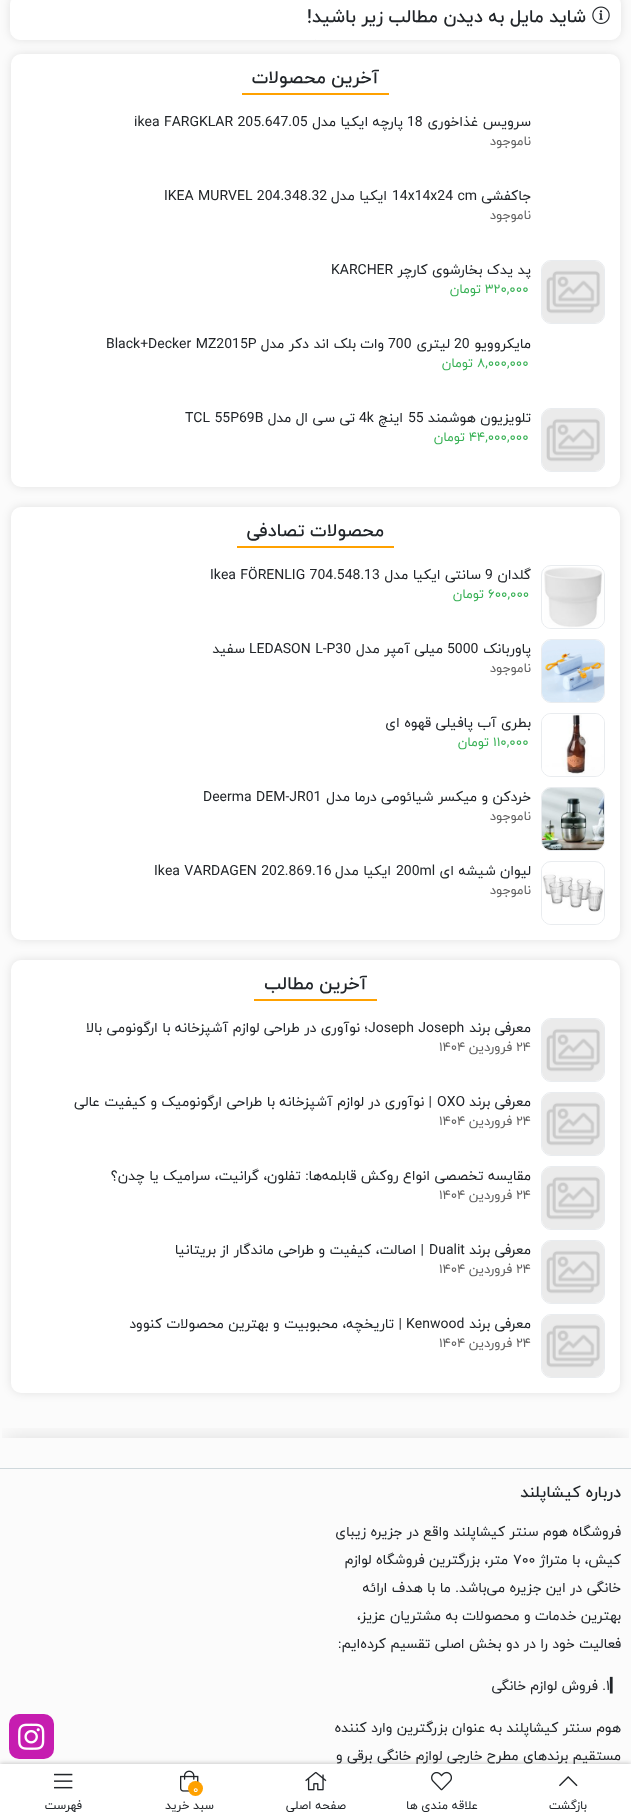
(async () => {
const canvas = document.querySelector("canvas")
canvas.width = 631
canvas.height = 1819
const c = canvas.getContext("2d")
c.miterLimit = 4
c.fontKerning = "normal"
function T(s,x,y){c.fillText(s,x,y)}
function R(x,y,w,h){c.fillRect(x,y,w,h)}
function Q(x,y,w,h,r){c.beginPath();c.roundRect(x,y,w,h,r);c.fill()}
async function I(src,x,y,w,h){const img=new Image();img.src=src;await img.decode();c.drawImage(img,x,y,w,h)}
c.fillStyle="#fbfbfb"
R(0,0,631,1819)
c.fillStyle="#0000001a"
c.filter="blur(5px)"
c.beginPath()
c.roundRect(10,-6,611,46,10)
c.fill()
c.filter="none"
c.fillStyle="#fff"
c.beginPath()
c.roundRect(10.5,-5.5,610,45,9.5)
c.fill()
c.strokeStyle="#fff"
c.stroke()
await I("1.png",592,6,18,18)
c.direction="rtl"
c.font="500 18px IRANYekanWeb"
c.fillStyle="#212529"
T("شاید مایل به دیدن مطالب زیر باشید!",586,22)
c.fillStyle="#0000001a"
c.filter="blur(5px)"
c.beginPath()
c.roundRect(11,54,609,433,10)
c.fill()
c.filter="none"
c.fillStyle="#fff"
Q(11,54,609,433,10)
c.fillStyle="#ffa100"
R(242,93,147,2)
c.fillStyle="#212529"
T("آخرین محصولات",379,83)
c.font="14px IRANYekanWeb"
T("سرویس غذاخوری",531,126)
c.direction="ltr"
T("18",407,126)
c.direction="rtl"
T("پارچه ایکیا مدل",403,126)
c.direction="ltr"
T("ikea FARGKLAR 205.647.05",134,126)
c.direction="rtl"
c.font="13px IRANYekanWeb"
c.fillStyle="#616161"
T("ناموجود",531,145)
c.font="14px IRANYekanWeb"
c.fillStyle="#212529"
T("جاکفشی",531,200)
c.direction="ltr"
T("14x14x24 cm",392,200)
c.direction="rtl"
T("ایکیا مدل",387,200)
c.direction="ltr"
T("IKEA MURVEL 204.348.32",164,200)
c.direction="rtl"
c.font="13px IRANYekanWeb"
c.fillStyle="#616161"
T("ناموجود",531,219)
c.beginPath()
c.roundRect(541.5,260.5,63,63,9.5)
c.strokeStyle="#e9ecef"
c.stroke()
await I("2.png",542,261,62,62)
c.font="14px IRANYekanWeb"
c.fillStyle="#212529"
T("پد یدک بخارشوی کارچر",531,274)
c.direction="ltr"
T("KARCHER",331,274)
c.font="13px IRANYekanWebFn"
c.fillStyle="#39b156"
T("۳۲۰,۰۰۰",485,293)
c.direction="rtl"
T("تومان",481,293)
c.font="14px IRANYekanWeb"
c.fillStyle="#212529"
T("مایکروویو",531,348)
c.direction="ltr"
T("20",454,348)
c.direction="rtl"
T("لیتری",450,348)
c.direction="ltr"
T("700",388,348)
c.direction="rtl"
T("وات بلک اند دکر مدل",384,348)
c.direction="ltr"
T("Black+Decker MZ2015P",106,348)
c.font="13px IRANYekanWebFn"
c.fillStyle="#39b156"
T("۸,۰۰۰,۰۰۰",477,367)
c.direction="rtl"
T("تومان",473,367)
c.beginPath()
c.roundRect(541.5,408.5,63,63,9.5)
c.stroke()
await I("3.png",542,409,62,62)
c.font="14px IRANYekanWeb"
c.fillStyle="#212529"
T("تلویزیون هوشمند",531,422)
c.direction="ltr"
T("55",408,422)
c.direction="rtl"
T("اینچ",403,422)
c.direction="ltr"
T("4k",359,422)
c.direction="rtl"
T("تی سی ال مدل",355,422)
c.direction="ltr"
T("TCL 55P69B",185,422)
c.font="13px IRANYekanWebFn"
c.fillStyle="#39b156"
T("۴۴,۰۰۰,۰۰۰",469,441)
c.direction="rtl"
T("تومان",465,441)
c.fillStyle="#0000001a"
c.filter="blur(5px)"
c.beginPath()
c.roundRect(11,507,609,433,10)
c.fill()
c.filter="none"
c.fillStyle="#fff"
Q(11,507,609,433,10)
c.fillStyle="#ffa100"
R(237,546,157,2)
c.font="500 18px IRANYekanWeb"
c.fillStyle="#212529"
T("محصولات تصادفی",384,536)
c.beginPath()
c.roundRect(541.5,565.5,63,63,9.5)
c.stroke()
await I("4.png",544,567,60,61)
c.font="14px IRANYekanWeb"
T("گلدان",531,579)
c.direction="ltr"
T("9",485,579)
c.direction="rtl"
T("سانتی ایکیا مدل",481,579)
c.direction="ltr"
T("Ikea FÖRENLIG 704.548.13",210,579)
c.font="13px IRANYekanWebFn"
c.fillStyle="#39b156"
T("۶۰۰,۰۰۰",488,598)
c.direction="rtl"
T("تومان",484,598)
c.beginPath()
c.roundRect(541.5,639.5,63,63,9.5)
c.stroke()
await I("5.png",542,640,62,62)
c.font="14px IRANYekanWeb"
c.fillStyle="#212529"
T("پاوربانک",531,653)
c.direction="ltr"
T("5000",447,653)
c.direction="rtl"
T("میلی آمپر مدل",443,653)
c.direction="ltr"
T("LEDASON L-P30",249,653)
c.direction="rtl"
T("سفید",245,653)
c.font="13px IRANYekanWeb"
c.fillStyle="#616161"
T("ناموجود",531,672)
c.beginPath()
c.roundRect(541.5,713.5,63,63,9.5)
c.stroke()
await I("6.png",542,714,62,62)
c.font="14px IRANYekanWeb"
c.fillStyle="#212529"
T("بطری آب پافیلی قهوه ای",531,727)
c.direction="ltr"
c.font="13px IRANYekanWebFn"
c.fillStyle="#39b156"
T("۱۱۰,۰۰۰",493,746)
c.direction="rtl"
T("تومان",489,746)
c.beginPath()
c.roundRect(541.5,787.5,63,63,9.5)
c.stroke()
await I("7.png",542,788,62,62)
c.font="14px IRANYekanWeb"
c.fillStyle="#212529"
T("خردکن و میکسر شیائومی درما مدل",531,801)
c.direction="ltr"
T("Deerma DEM-JR01",203,801)
c.direction="rtl"
c.font="13px IRANYekanWeb"
c.fillStyle="#616161"
T("ناموجود",531,820)
c.beginPath()
c.roundRect(541.5,861.5,63,63,9.5)
c.stroke()
await I("8.png",542,868,62,56)
c.font="14px IRANYekanWeb"
c.fillStyle="#212529"
T("لیوان شیشه ای",531,875)
c.direction="ltr"
T("200ml",396,875)
c.direction="rtl"
T("ایکیا مدل",391,875)
c.direction="ltr"
T("Ikea VARDAGEN 202.869.16",154,875)
c.direction="rtl"
c.font="13px IRANYekanWeb"
c.fillStyle="#616161"
T("ناموجود",531,894)
c.fillStyle="#0000001a"
c.filter="blur(5px)"
c.beginPath()
c.roundRect(11,960,609,433,10)
c.fill()
c.filter="none"
c.fillStyle="#fff"
Q(11,960,609,433,10)
c.fillStyle="#ffa100"
R(254,999,123,2)
c.font="500 18px IRANYekanWeb"
c.fillStyle="#212529"
T("آخرین مطالب",367,989)
c.beginPath()
c.roundRect(541.5,1018.5,63,63,9.5)
c.stroke()
await I("3.png",542,1019,62,62)
c.font="14px IRANYekanWeb"
T("معرفی برند",531,1032)
c.direction="ltr"
T("Joseph Joseph",368,1032)
c.direction="rtl"
T("؛ نوآوری در طراحی لوازم آشپزخانه با ارگونومی بالا",368,1032)
c.direction="ltr"
c.font="13px IRANYekanWebFn"
c.fillStyle="#616161"
T("24",516,1051)
c.direction="rtl"
T("فروردین",512,1051)
c.direction="ltr"
T("1404",439,1051)
c.beginPath()
c.roundRect(541.5,1092.5,63,63,9.5)
c.stroke()
await I("3.png",542,1093,62,62)
c.direction="rtl"
c.font="14px IRANYekanWeb"
c.fillStyle="#212529"
T("معرفی برند",531,1106)
c.direction="ltr"
T("OXO",437,1106)
c.direction="rtl"
T("| نوآوری در لوازم آشپزخانه با طراحی ارگونومیک و کیفیت عالی",432,1106)
c.direction="ltr"
c.font="13px IRANYekanWebFn"
c.fillStyle="#616161"
T("24",516,1125)
c.direction="rtl"
T("فروردین",512,1125)
c.direction="ltr"
T("1404",439,1125)
c.beginPath()
c.roundRect(541.5,1166.5,63,63,9.5)
c.stroke()
await I("3.png",542,1167,62,62)
c.direction="rtl"
c.font="14px IRANYekanWeb"
c.fillStyle="#212529"
T("مقایسه تخصصی انواع روکش قابلمه‌ها: تفلون، گرانیت، سرامیک یا چدن؟",531,1180)
c.direction="ltr"
c.font="13px IRANYekanWebFn"
c.fillStyle="#616161"
T("24",516,1199)
c.direction="rtl"
T("فروردین",512,1199)
c.direction="ltr"
T("1404",439,1199)
c.beginPath()
c.roundRect(541.5,1240.5,63,63,9.5)
c.stroke()
await I("9.png",542,1241,62,62)
c.direction="rtl"
c.font="14px IRANYekanWeb"
c.fillStyle="#212529"
T("معرفی برند",531,1254)
c.direction="ltr"
T("Dualit",429,1254)
c.direction="rtl"
T("| اصالت، کیفیت و طراحی ماندگار از بریتانیا",424,1254)
c.direction="ltr"
c.font="13px IRANYekanWebFn"
c.fillStyle="#616161"
T("24",516,1273)
c.direction="rtl"
T("فروردین",512,1273)
c.direction="ltr"
T("1404",439,1273)
c.beginPath()
c.roundRect(541.5,1314.5,63,63,9.5)
c.stroke()
await I("3.png",542,1315,62,62)
c.direction="rtl"
c.font="14px IRANYekanWeb"
c.fillStyle="#212529"
T("معرفی برند",531,1328)
c.direction="ltr"
T("Kenwood",406,1328)
c.direction="rtl"
T("| تاریخچه، محبوبیت و بهترین محصولات کنوود",402,1328)
c.direction="ltr"
c.font="13px IRANYekanWebFn"
c.fillStyle="#616161"
T("24",516,1347)
c.direction="rtl"
T("فروردین",512,1347)
c.direction="ltr"
T("1404",439,1347)
c.save()
c.beginPath()
c.rect(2,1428,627,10)
c.clip()
c.fillStyle="#0000001f"
c.filter="blur(10px)"
c.beginPath()
c.rect(6,1438,619,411)
c.fill()
c.filter="none"
c.restore()
c.fillStyle="#cfd8dc"
R(0,1468,631,1)
c.direction="rtl"
c.font="500 16px IRANYekanWeb"
c.fillStyle="#212529"
T("درباره کیشاپلند",621,1497)
c.font="14px IRANYekanWeb"
T("فروشگاه هوم سنتر کیشاپلند واقع در جزیره زیبای",621,1536)
T("کیش، با متراژ",621,1564)
c.direction="ltr"
T("۷۰۰",513,1564)
c.direction="rtl"
T("متر، بزرگترین فروشگاه لوازم",508,1564)
T("خانگی در این جزیره می‌باشد. ما با هدف ارائه",621,1592)
T("بهترین خدمات و محصولات به مشتریان عزیز،",621,1620)
T("فعالیت خود را در دو بخش اصلی تقسیم کرده‌ایم:",621,1648)
c.direction="ltr"
c.font="14px DejaVu Sans"
T("▎",610,1690)
c.font="14px IRANYekanWeb"
T("۱",606,1690)
c.direction="rtl"
T(". فروش لوازم خانگی",606,1690)
T("هوم سنتر کیشاپلند به عنوان بزرگترین وارد کننده",621,1732)
T("مستقیم برندهای مطرح خارجی لوازم خانگی برقی و",621,1760)
c.fillStyle="#00000030"
c.filter="blur(2px)"
c.beginPath()
c.rect(0,1763,631,55)
c.fill()
c.filter="none"
c.fillStyle="#c61db0"
Q(9,1714,45,45,10)
await I("10.png",18,1723,27,27)
c.fillStyle="#fff"
R(0,1764,631,55)
await I("11.png",559,1776,19,11)
c.font="12px IRANYekanWeb"
c.fillStyle="#212529"
T("بازگشت",587,1809)
await I("12.png",431,1771,21,20)
T("علاقه مندی ها",478,1809)
await I("13.png",305,1771,22,20)
T("صفحه اصلی",346,1809)
await I("14.png",180,1770,19,22)
c.fillStyle="#ffa100"
c.beginPath()
c.arc(195.5,1788.5,7.5,0,7)
c.fill()
c.direction="ltr"
c.font="11px IRANYekanWebFn"
c.fillStyle="#fff"
T("0",193,1793)
c.direction="rtl"
c.font="12px IRANYekanWeb"
c.fillStyle="#212529"
T("سبد خرید",214,1809)
await I("15.png",54,1773,19,16)
T("فهرست",82,1809)
})()
